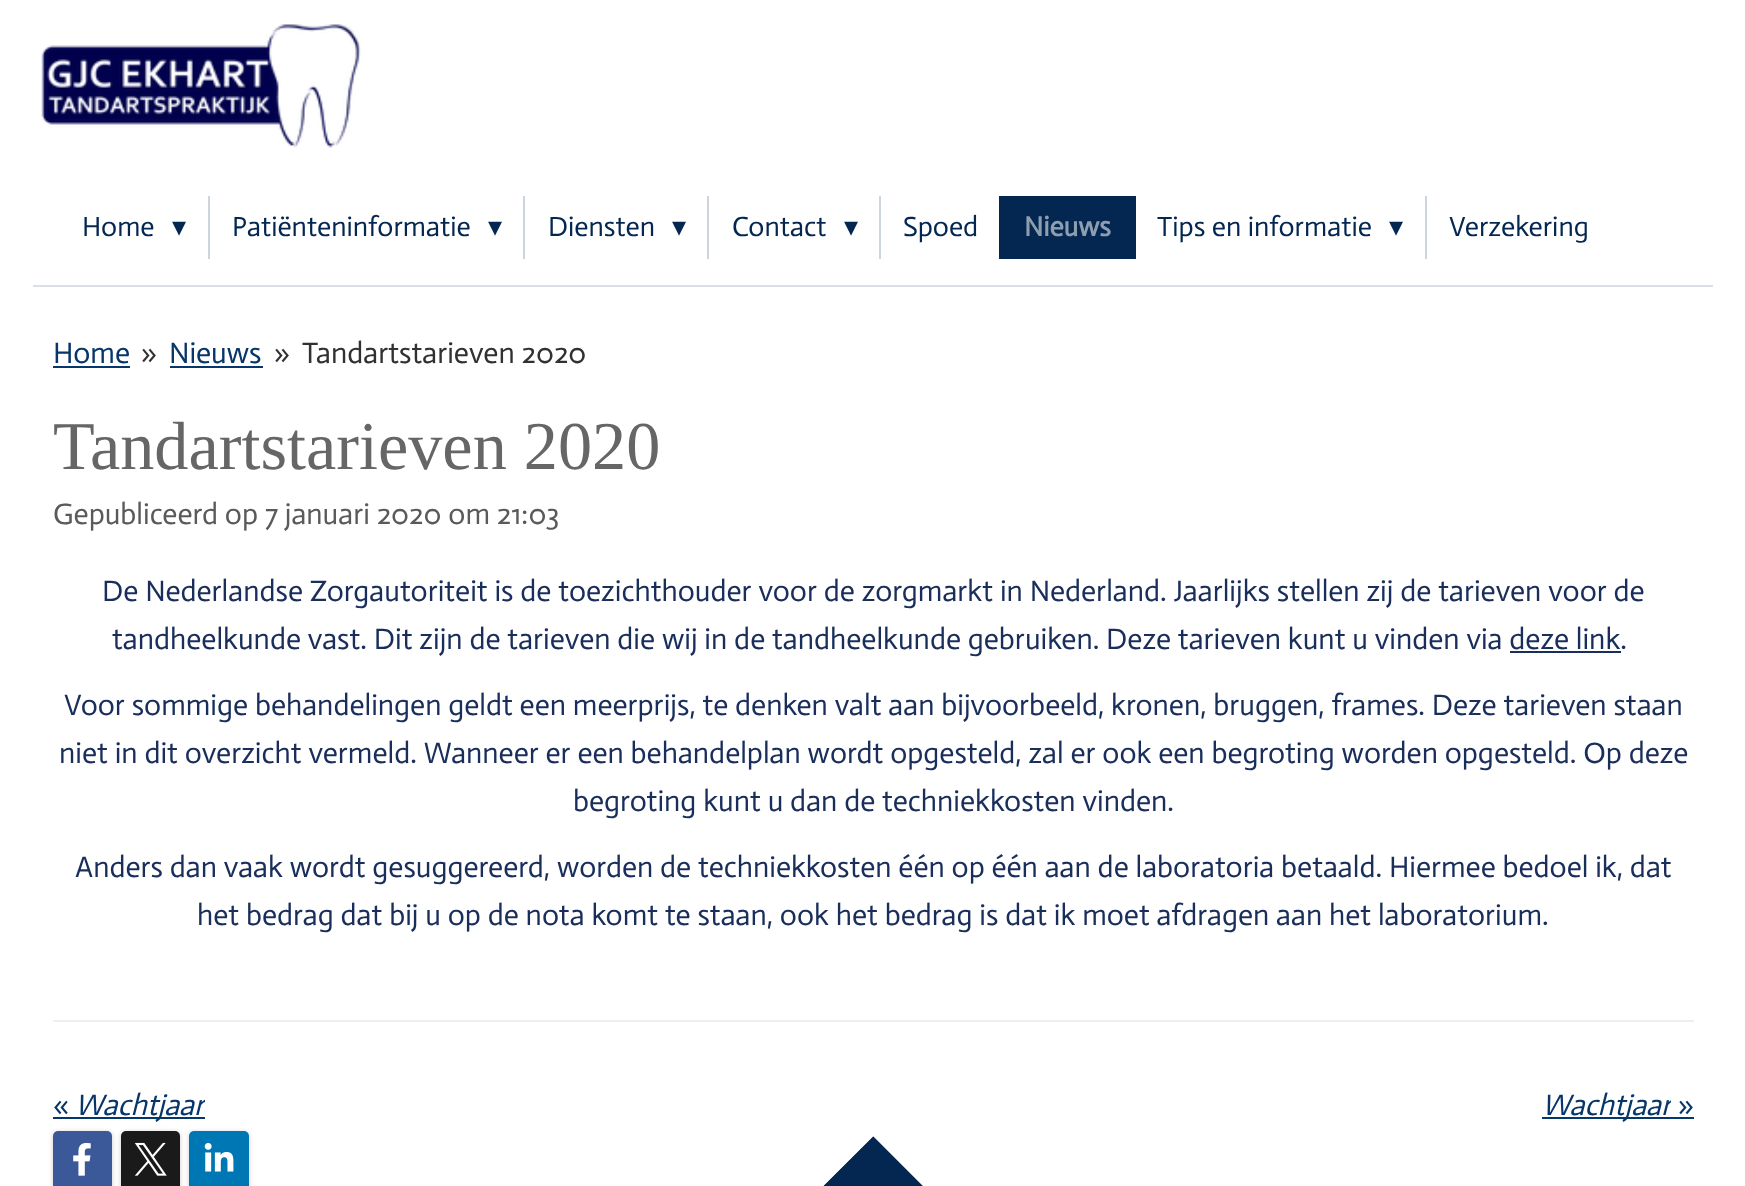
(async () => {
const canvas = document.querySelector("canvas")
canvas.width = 1745
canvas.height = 1186
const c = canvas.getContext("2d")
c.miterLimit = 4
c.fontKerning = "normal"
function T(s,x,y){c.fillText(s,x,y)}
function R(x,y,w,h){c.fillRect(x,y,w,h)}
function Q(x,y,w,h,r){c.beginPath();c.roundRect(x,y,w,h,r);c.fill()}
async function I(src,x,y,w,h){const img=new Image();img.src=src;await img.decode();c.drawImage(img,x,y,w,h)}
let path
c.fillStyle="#fff"
R(0,0,1745,1186)
c.fillStyle="#d9dfe5"
R(33,285,1680,2)
await I("1.png",41,23,320,125)
c.font="28px Actor"
c.fillStyle="#032750"
T("Home",82,236)
c.font="28px DejaVu Sans"
T("▾",172,236)
c.fillStyle="#cdd4dc"
R(208,196,2,63)
c.font="28px Actor"
c.fillStyle="#032750"
T("Patiënteninformatie",232,236)
c.font="28px DejaVu Sans"
T("▾",488,236)
c.fillStyle="#cdd4dc"
R(523,196,2,63)
c.font="28px Actor"
c.fillStyle="#032750"
T("Diensten",548,236)
c.font="28px DejaVu Sans"
T("▾",672,236)
c.fillStyle="#cdd4dc"
R(707,196,2,63)
c.font="28px Actor"
c.fillStyle="#032750"
T("Contact",732,236)
c.font="28px DejaVu Sans"
T("▾",844,236)
c.fillStyle="#cdd4dc"
R(879,196,2,63)
c.font="28px Actor"
c.fillStyle="#032750"
T("Spoed",903,236)
R(999,196,137,63)
c.font="bold 28px Actor"
c.fillStyle="#8e9eb0"
T("Nieuws",1024,236)
c.font="28px Actor"
c.fillStyle="#032750"
T("Tips en informatie",1157,236)
c.font="28px DejaVu Sans"
T("▾",1389,236)
c.fillStyle="#cdd4dc"
R(1425,196,2,63)
c.font="28px Actor"
c.fillStyle="#032750"
T("Verzekering",1449,236)
c.font="29.75px Actor"
c.fillStyle="#07366a"
T("Home",53,363)
R(53,366,77,2)
c.fillStyle="#313131"
T("»",141,363)
c.fillStyle="#07366a"
T("Nieuws",169,363)
R(170,366,93,2)
c.fillStyle="#313131"
T("»",274,363)
T("Tandartstarieven 2020",302,363)
c.font="68.25px Liberation Serif"
c.fillStyle="#666"
T("Tandartstarieven 2020",53,469)
c.font="29.75px Actor"
c.fillStyle="#5a5a5a"
T("Gepubliceerd op 7 januari 2020 om 21:03",53,524)
c.fillStyle="#192e5b"
T("De Nederlandse Zorgautoriteit is de toezichthouder voor de zorgmarkt in Nederland. Jaarlijks stellen zij de tarieven voor de",102,601)
T("tandheelkunde vast. Dit zijn de tarieven die wij in de tandheelkunde gebruiken. Deze tarieven kunt u vinden via deze link.",112,649)
R(1510,651,111,2)
T("Voor sommige behandelingen geldt een meerprijs, te denken valt aan bijvoorbeeld, kronen, bruggen, frames. Deze tarieven staan",64,715)
T("niet in dit overzicht vermeld. Wanneer er een behandelplan wordt opgesteld, zal er ook een begroting worden opgesteld. Op deze",59,763)
T("begroting kunt u dan de techniekkosten vinden.",573,811)
T("Anders dan vaak wordt gesuggereerd, worden de techniekkosten één op één aan de laboratoria betaald. Hiermee bedoel ik, dat",75,877)
T("het bedrag dat bij u op de nota komt te staan, ook het bedrag is dat ik moet afdragen aan het laboratorium.",197,925)
c.fillStyle="#efefef"
R(53,1020,1641,2)
c.fillStyle="#07366a"
T("«",53,1115)
R(53,1117,152,2)
c.save()
c.beginPath()
c.rect(75,1082,130,49)
c.clip()
c.font="italic 29.75px Actor"
T("Wachtjaar",75,1115)
c.restore()
R(1542,1117,152,2)
c.save()
c.beginPath()
c.rect(1542,1082,129,49)
c.clip()
c.font="italic 29.75px Actor"
T("Wachtjaar",1542,1115)
c.restore()
T("»",1678,1115)
c.fillStyle="#00000033"
c.filter="blur(2.5px)"
c.beginPath()
c.roundRect(53,1132,59,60,5)
c.fill()
c.filter="none"
c.fillStyle="#3b5998"
Q(53,1131,59,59,5)
await I("2.png",73,1142,18,34)
c.fillStyle="#00000033"
c.filter="blur(2.5px)"
c.beginPath()
c.roundRect(121,1132,59,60,5)
c.fill()
c.filter="none"
c.fillStyle="#1a1a1a"
Q(121,1131,59,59,5)
await I("3.png",134,1142,33,34)
c.fillStyle="#00000033"
c.filter="blur(2.5px)"
c.beginPath()
c.roundRect(189,1132,60,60,5)
c.fill()
c.filter="none"
c.fillStyle="#0077b5"
Q(189,1131,60,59,5)
await I("4.png",204,1142,30,30)
c.fillStyle="#032750"
path = new Path2D("M873 1136l62 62l-62 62l-62-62z")
c.fill(path)
path = new Path2D("M873.5 1127.5l70.5 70.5l-71 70.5l-70.5-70.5z")
c.strokeStyle="#fff"
c.lineWidth=12.3
c.stroke(path)
})()
